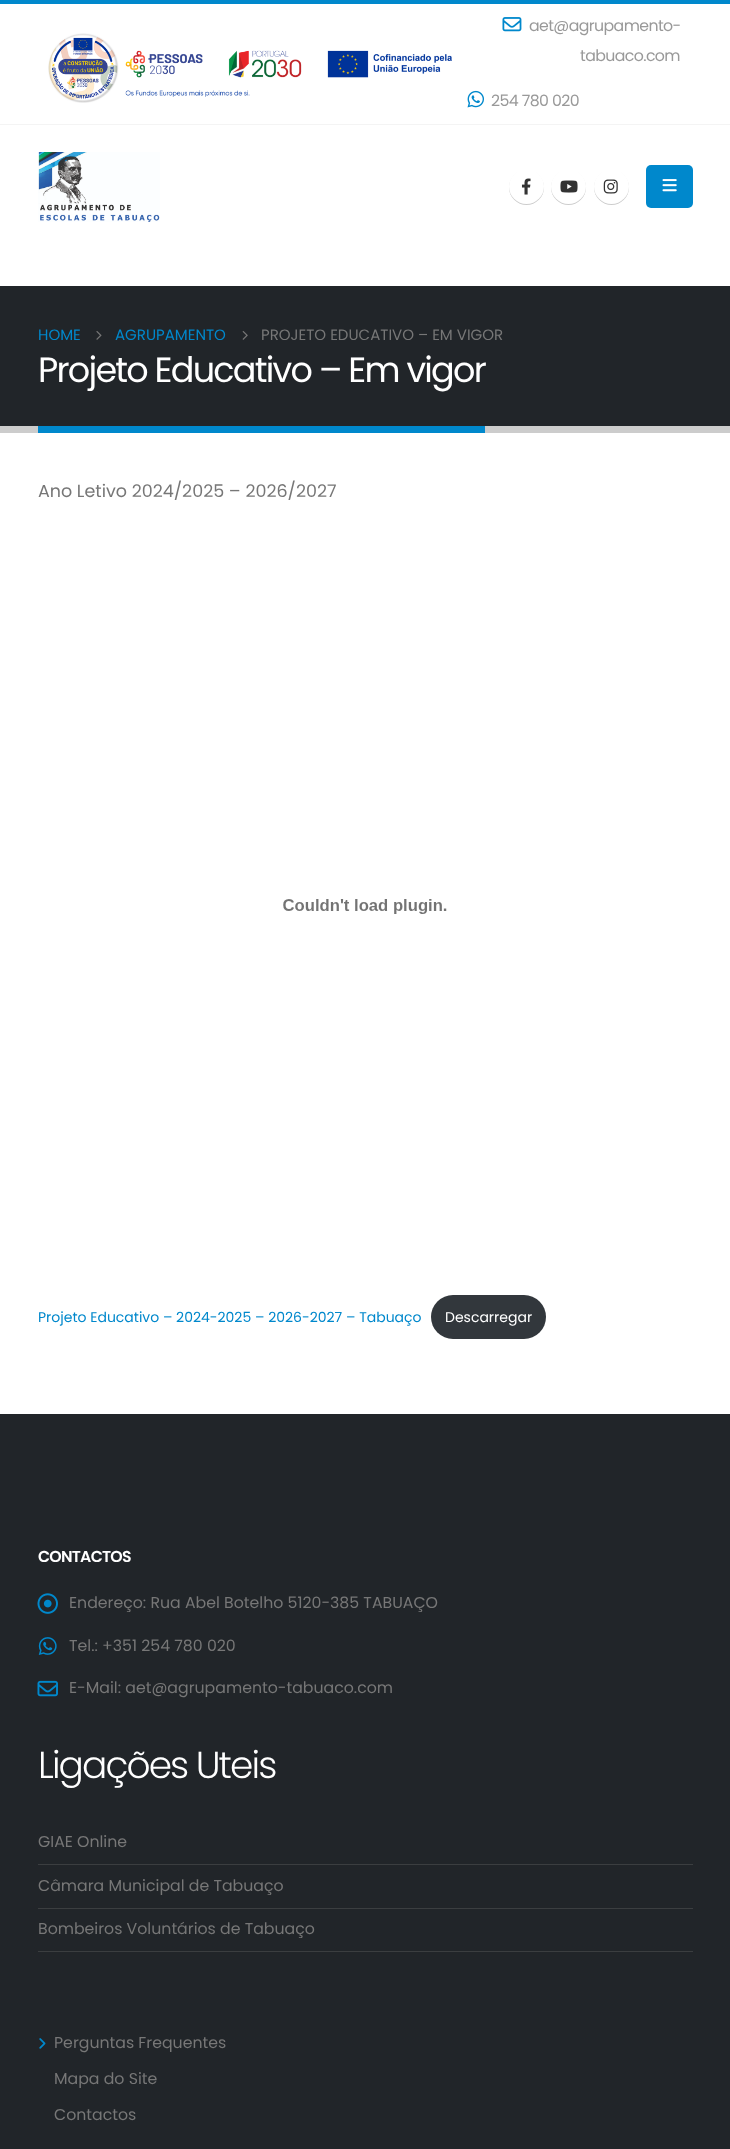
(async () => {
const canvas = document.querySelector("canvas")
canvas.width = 730
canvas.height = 2149
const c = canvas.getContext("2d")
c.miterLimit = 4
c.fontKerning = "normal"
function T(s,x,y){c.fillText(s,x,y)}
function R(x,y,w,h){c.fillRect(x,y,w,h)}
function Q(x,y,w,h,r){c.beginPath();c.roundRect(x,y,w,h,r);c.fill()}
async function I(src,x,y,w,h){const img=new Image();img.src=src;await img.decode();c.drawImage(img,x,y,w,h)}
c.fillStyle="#fff"
R(0,0,730,2149)
c.fillStyle="#08c"
R(0,0,730,4)
c.fillStyle="#f4f4f4"
R(0,124,730,1)
await I("1.png",48,33,404,70)
await I("2.png",502,17,20,15)
c.letterSpacing="-0.6px"
c.font="15.75px Poppins"
c.fillStyle="#999"
T("aet@agrupamento-",529,31)
T("tabuaco.com",580,61)
await I("3.png",467,90,17,18)
T("254 780 020",491,106)
await I("4.png",38,152,122,70)
c.fillStyle="#00000033"
c.filter="blur(0.5px)"
c.beginPath()
c.roundRect(509,170,35,35,17.5)
c.fill()
c.filter="none"
c.fillStyle="#fff"
c.beginPath()
c.arc(526.5,186.5,17.5,0,7)
c.fill()
await I("5.png",521,178,10,17)
c.fillStyle="#00000033"
c.filter="blur(0.5px)"
c.beginPath()
c.roundRect(551,170,35,35,17.5)
c.fill()
c.filter="none"
c.fillStyle="#fff"
c.beginPath()
c.arc(568.5,186.5,17.5,0,7)
c.fill()
await I("6.png",560,180,18,13)
c.fillStyle="#00000033"
c.filter="blur(0.5px)"
c.beginPath()
c.roundRect(594,170,35,35,17.5)
c.fill()
c.filter="none"
c.fillStyle="#fff"
c.beginPath()
c.arc(611.5,186.5,17.5,0,7)
c.fill()
await I("7.png",603,179,15,15)
c.fillStyle="#08c"
Q(646,165,47,43,5)
await I("8.png",662,179,15,13)
c.fillStyle="#212529"
R(0,286,730,140)
c.fillStyle="#ccc"
R(0,426,730,7)
c.letterSpacing="0px"
c.font="15px Poppins"
c.fillStyle="#08c"
T("HOME",38,340)
await I("9.png",96,331,6,9)
T("AGRUPAMENTO",115,340)
await I("10.png",242,331,6,9)
c.fillStyle="#777"
T("PROJETO EDUCATIVO – EM VIGOR",261,340)
c.letterSpacing="-1.75px"
c.font="35px Poppins"
c.fillStyle="#fff"
T("Projeto Educativo – Em vigor",38,382)
c.fillStyle="#08c"
R(38,426,447,7)
c.letterSpacing="0px"
c.font="17.5px Poppins"
c.fillStyle="#777"
T("Ano Letivo 2024/2025 – 2026/2027",38,497)
await I("11.png",283,899,164,15)
c.font="14px Poppins"
c.fillStyle="#08c"
T("Projeto Educativo – 2024-2025 – 2026-2027 – Tabuaço",38,1322)
c.fillStyle="#32373c"
Q(431,1295,115,44,22)
c.fillStyle="#fff"
T("Descarregar",445,1322)
c.fillStyle="#212529"
R(0,1414,730,735)
c.letterSpacing="-0.75px"
c.font="600 15.75px Poppins"
c.fillStyle="#fff"
T("CONTACTOS",38,1562)
await I("12.png",37,1593,21,21)
c.letterSpacing="0px"
c.font="15.75px Poppins"
c.fillStyle="#777"
T("Endereço: Rua Abel Botelho 5120-385 TABUAÇO",69,1608)
await I("13.png",38,1637,19,18)
T("Tel.: +351 254 780 020",69,1651)
await I("14.png",37,1680,21,17)
T("E-Mail: aet@agrupamento-tabuaco.com",69,1693)
c.letterSpacing="-1.9px"
c.font="300 37.5px Poppins"
c.fillStyle="#fff"
T("Ligações Uteis",38,1778)
c.fillStyle="#3b3e40"
R(38,1951,655,1)
c.letterSpacing="0px"
c.font="15.75px Poppins"
c.fillStyle="#777"
T("GIAE Online",38,1847)
c.fillStyle="#3b3e40"
R(38,1864,655,1)
c.fillStyle="#777"
T("Câmara Municipal de Tabuaço",38,1891)
c.fillStyle="#3b3e40"
R(38,1908,655,1)
c.fillStyle="#777"
T("Bombeiros Voluntários de Tabuaço",38,1934)
await I("15.png",39,2038,7,11)
T("Perguntas Frequentes",54,2048)
T("Mapa do Site",54,2084)
T("Contactos",54,2120)
})()
